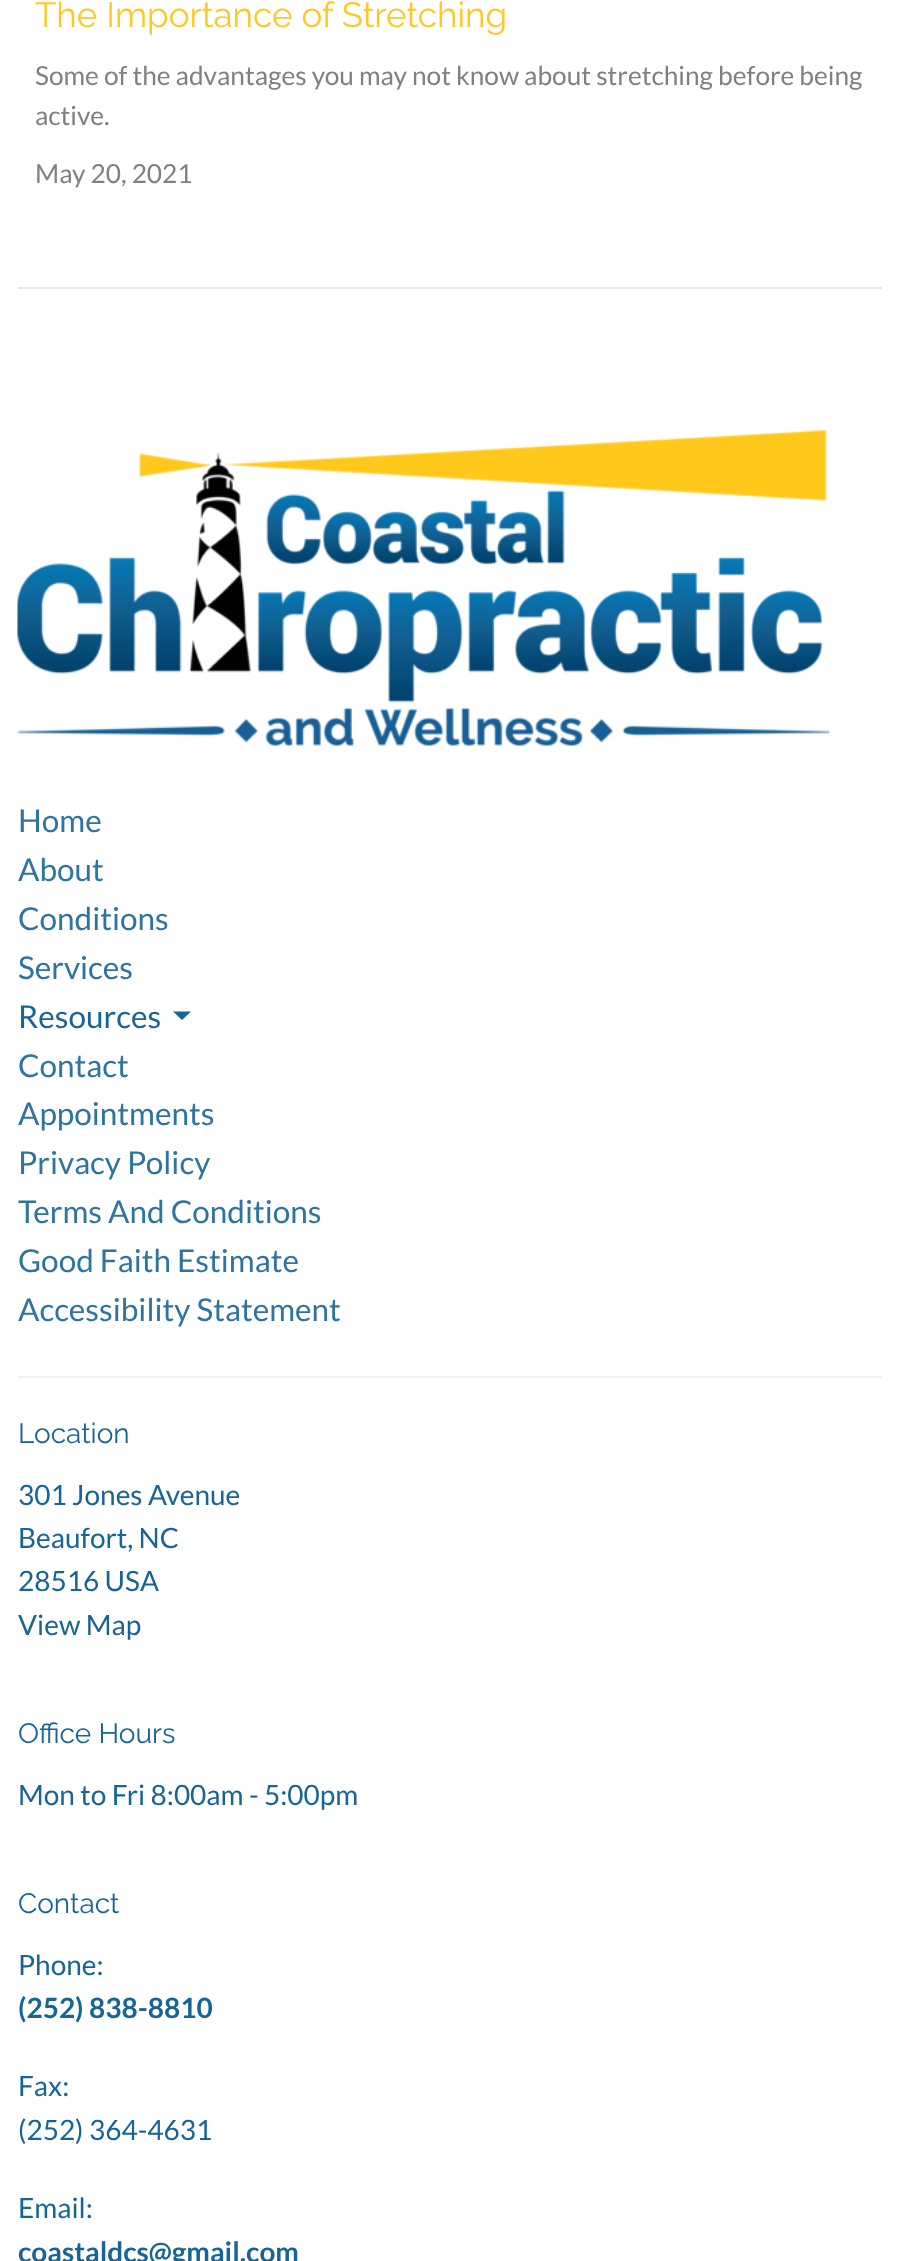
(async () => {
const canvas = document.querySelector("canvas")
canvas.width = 899
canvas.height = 2261
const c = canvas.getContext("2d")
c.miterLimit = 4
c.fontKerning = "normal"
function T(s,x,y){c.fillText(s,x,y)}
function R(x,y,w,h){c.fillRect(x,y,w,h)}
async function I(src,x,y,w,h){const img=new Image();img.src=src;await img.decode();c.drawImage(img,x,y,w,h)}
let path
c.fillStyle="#fff"
R(0,0,899,2261)
c.fillStyle="#e6e6e6"
R(18,287,864,2)
c.font="35px Raleway"
c.fillStyle="#ffc722"
T("The Importance of Stretching",35,27)
c.font="26.25px Lato"
c.fillStyle="#808080"
T("Some of the advantages you may not know about stretching before being",35,85)
T("active.",35,125)
T("May 20, 2021",35,183)
await I("1.png",17,430,813,316)
c.font="31.5px Lato"
c.fillStyle="#2d74a1"
T("Home",18,832)
T("About",18,881)
T("Conditions",18,930)
T("Services",18,979)
c.fillStyle="#166596"
T("Resources",18,1028)
path = new Path2D("M173 1011.5l9 8.5l9-8.5z")
c.fill(path)
c.fillStyle="#2d74a1"
T("Contact",18,1077)
T("Appointments",18,1125)
T("Privacy Policy",18,1174)
T("Terms And Conditions",18,1223)
T("Good Faith Estimate",18,1272)
T("Accessibility Statement",18,1321)
c.fillStyle="#f0f0f0"
R(18,1376,864,2)
c.font="28px Raleway"
c.fillStyle="#166596"
T("Location",18,1443)
c.font="28px Lato"
T("301 Jones Avenue",18,1505)
T("Beaufort, NC",18,1548)
T("28516 USA",18,1591)
T("View Map",18,1635)
c.font="28px Raleway"
T("Office Hours",18,1743)
c.font="28px Lato"
T("Mon to Fri 8:00am - 5:00pm",18,1805)
c.font="28px Raleway"
T("Contact",18,1913)
c.font="28px Lato"
T("Phone:",18,1975)
c.font="bold 28px Lato"
T("(252) 838-8810",18,2018)
c.font="28px Lato"
T("Fax:",18,2096)
T("(252) 364-4631",18,2140)
T("Email:",18,2218)
c.font="bold 28px Lato"
T("coastaldcs@gmail.com",18,2262)
})()
